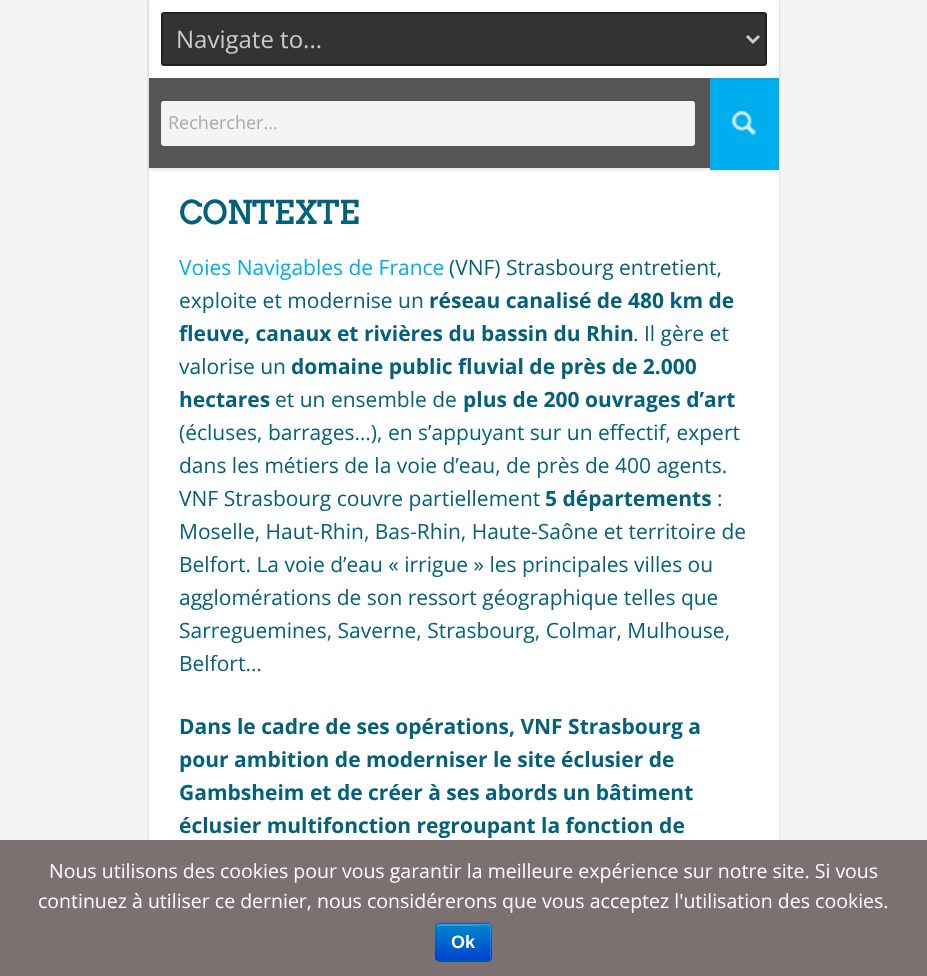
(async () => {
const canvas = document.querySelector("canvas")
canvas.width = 927
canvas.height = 976
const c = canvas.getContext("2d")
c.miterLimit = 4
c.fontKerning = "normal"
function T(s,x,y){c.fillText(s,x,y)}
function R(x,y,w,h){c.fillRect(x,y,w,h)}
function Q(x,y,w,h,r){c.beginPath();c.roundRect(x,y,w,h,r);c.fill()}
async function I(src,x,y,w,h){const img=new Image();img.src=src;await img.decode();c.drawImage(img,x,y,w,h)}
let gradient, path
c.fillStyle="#f4f4f4"
R(0,0,927,976)
c.strokeStyle="#e8e8e8"
c.lineWidth=2
c.strokeRect(148,-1,631,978)
c.fillStyle="#fff"
R(149,168,630,672)
c.fillStyle="#0000001a"
c.filter="blur(1.5px)"
c.beginPath()
c.rect(149,2,630,168)
c.fill()
c.filter="none"
c.fillStyle="#fff"
R(149,0,630,78)
c.fillStyle="#333"
c.beginPath()
c.roundRect(162,13,604,52,2)
c.fill()
c.strokeStyle="#222"
c.stroke()
path = new Path2D("M747 36l6 6l6-6")
c.strokeStyle="#ccc"
c.lineWidth=3
c.stroke(path)
c.font="24px Open Sans"
c.fillStyle="#ccc"
T("Navigate to...",176,48)
c.fillStyle="#555"
R(149,78,561,90)
c.fillStyle="#f4f4f4"
c.beginPath()
c.roundRect(162,102,532,43,2)
c.fill()
c.strokeStyle="#f4f4f4"
c.lineWidth=2
c.stroke()
c.font="18px Open Sans"
c.fillStyle="#aaa"
T("Rechercher...",168,129)
c.fillStyle="#00adef"
R(710,78,69,92)
await I("1.png",731,110,26,26)
c.font="bold 31.5px Arvo"
c.fillStyle="#04617b"
T("CONTEXTE",179,224)
c.font="21px Open Sans"
c.fillStyle="#00adef"
T("Voies Navigables de France",179,275)
c.fillStyle="#04617b"
T("(VNF) Strasbourg entretient,",449,275)
T("exploite et modernise un",179,308)
c.font="bold 21px Open Sans"
T("réseau canalisé de 480 km de",429,308)
T("fleuve, canaux et rivières du bassin du Rhin",179,341)
c.font="21px Open Sans"
T(". Il gère et",633,341)
T("valorise un",179,374)
c.font="bold 21px Open Sans"
T("domaine public fluvial de près de 2.000",291,374)
T("hectares",179,407)
c.font="21px Open Sans"
T("et un ensemble de",275,407)
c.font="bold 21px Open Sans"
T("plus de 200 ouvrages d’art",463,407)
c.font="21px Open Sans"
T("(écluses, barrages…), en s’appuyant sur un effectif, expert",179,440)
T("dans les métiers de la voie d’eau, de près de 400 agents.",179,473)
T("VNF Strasbourg couvre partiellement",179,506)
c.font="bold 21px Open Sans"
T("5 départements",545,506)
c.font="21px Open Sans"
T(":",717,506)
T("Moselle, Haut-Rhin, Bas-Rhin, Haute-Saône et territoire de",179,539)
T("Belfort. La voie d’eau « irrigue » les principales villes ou",179,572)
T("agglomérations de son ressort géographique telles que",179,605)
T("Sarreguemines, Saverne, Strasbourg, Colmar, Mulhouse,",179,638)
T("Belfort…",179,671)
c.font="bold 21px Open Sans"
T("Dans le cadre de ses opérations, VNF Strasbourg a",179,734)
T("pour ambition de moderniser le site éclusier de",179,767)
T("Gambsheim et de créer à ses abords un bâtiment",179,800)
T("éclusier multifonction regroupant la fonction de",179,833)
c.fillStyle="#7c7170"
R(0,840,927,136)
c.font="19.5px Open Sans"
c.fillStyle="#fff"
T("Nous utilisons des cookies pour vous garantir la meilleure expérience sur notre site. Si vous",49,878)
T("continuez à utiliser ce dernier, nous considérerons que vous acceptez l'utilisation des cookies.",38,908)
c.fillStyle="#006dcc"
Q(435,923,57,39,5)
c.save()
c.beginPath()
c.roundRect(435,923,57,39,5)
c.clip()
gradient = c.createLinearGradient(464,924,464,960)
gradient.addColorStop(0,"#08c")
gradient.addColorStop(1,"#04c")
c.fillStyle = gradient
R(435,924,57,36)
c.restore()
c.fillStyle="#ffffff33"
path = new Path2D("M440 926h32c20 0 18-5 18 12v21c1 0 1-1 1-2v-30c0-2-1-3-3-3h-48c-2 0-3 1-3 3z")
c.fill(path)
path = new Path2D("M490 959.5c-.5 1-1.5 1.5-2.5 1.5h-48c-1 0-2-.5-2.5-1.5")
c.strokeStyle="#00000040"
c.lineWidth=1.5
c.stroke(path)
path = new Path2D("M437 959.5c-1-.5-1-1.5-1-2.5v-30c0-1 0-2 1-2.5c.5-1 1.5-1.5 2.5-1.5h48c1 0 2 .5 2.5 1.5c1 .5 1 1.5 1 2.5v30c0 1 0 2-1 2.5")
c.strokeStyle="#0000001a"
c.stroke(path)
c.font="bold 18px Liberation Sans"
c.fillStyle="#fff"
T("Ok",451,948)
})()
